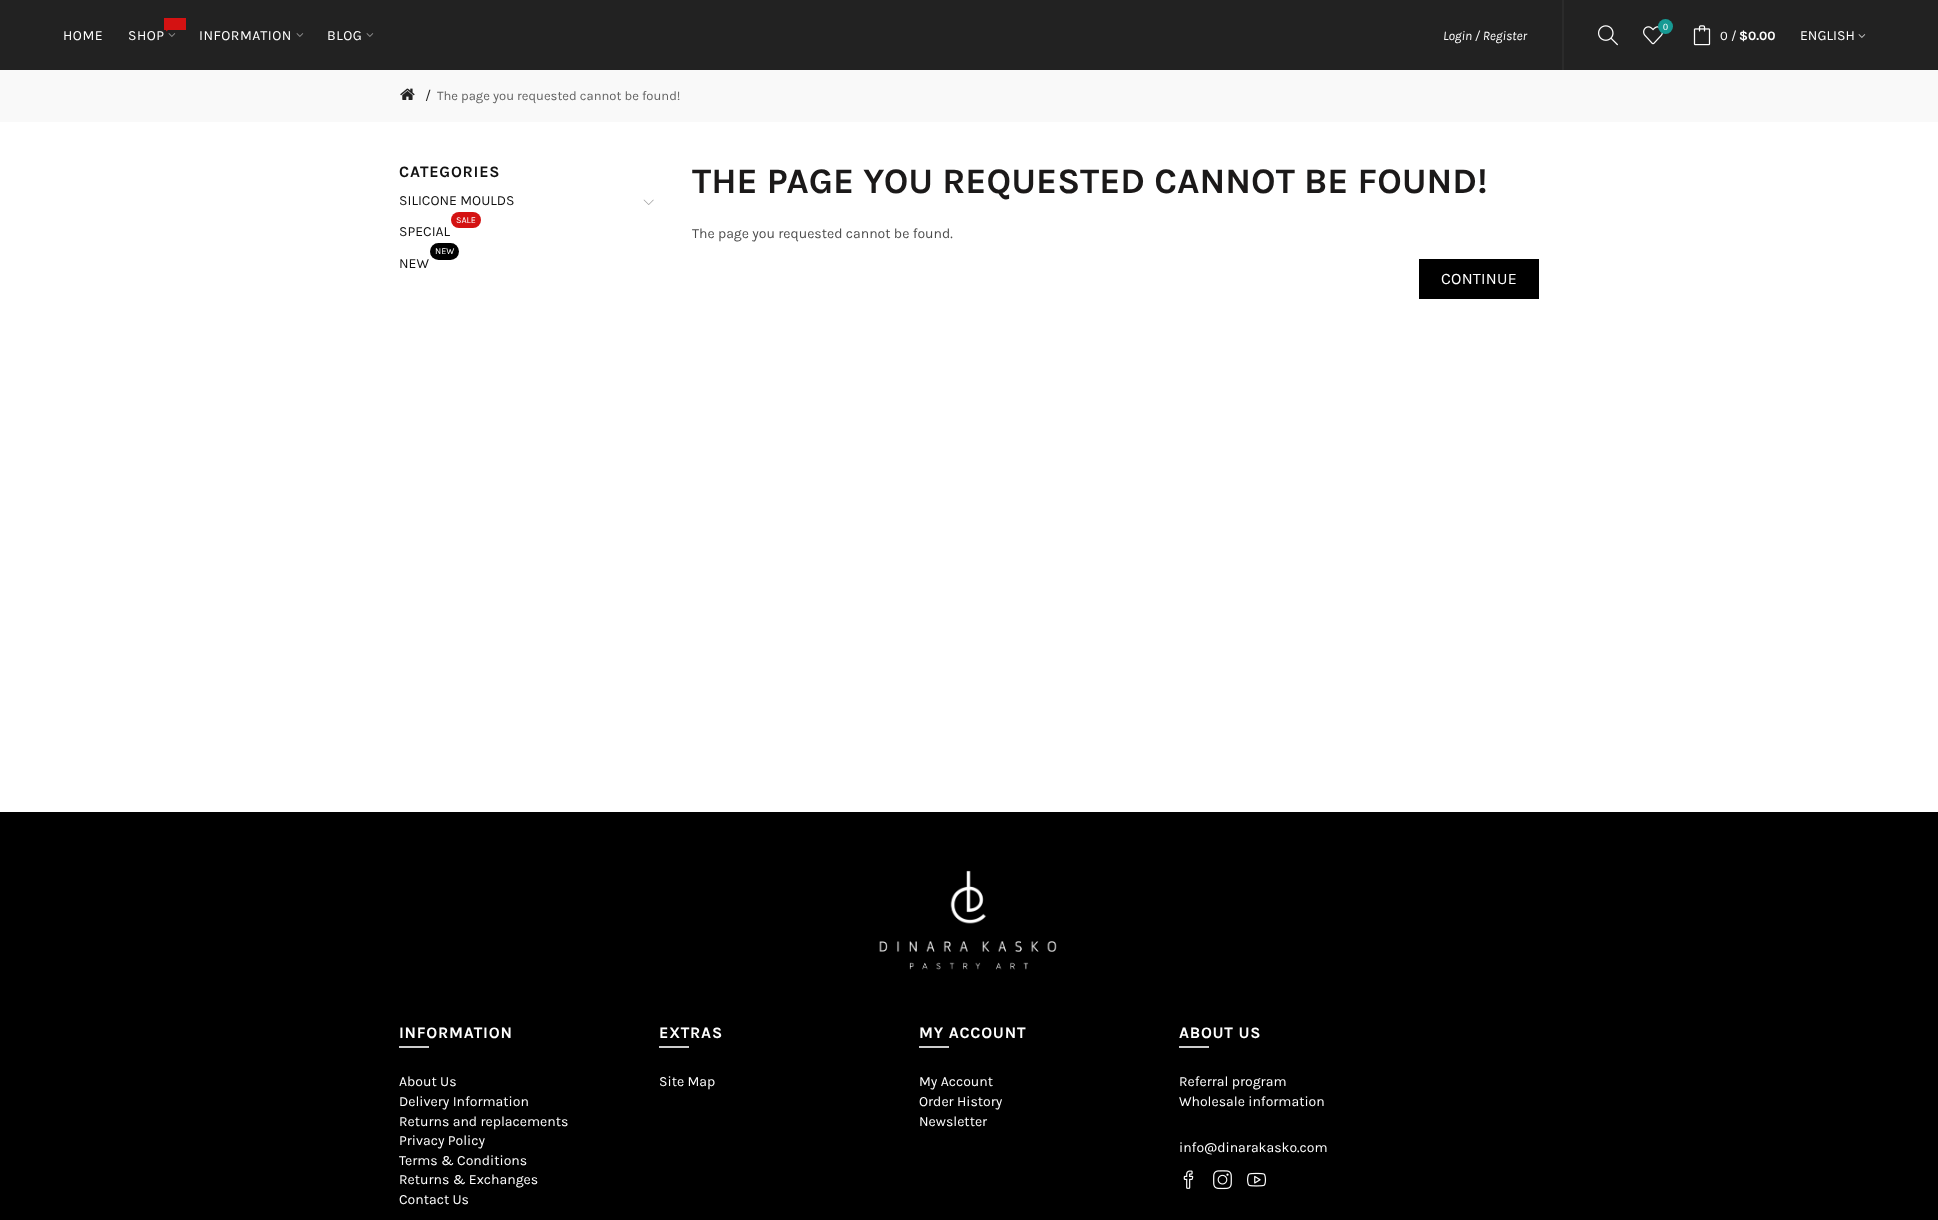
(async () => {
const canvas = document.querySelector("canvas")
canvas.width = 1938
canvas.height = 1220
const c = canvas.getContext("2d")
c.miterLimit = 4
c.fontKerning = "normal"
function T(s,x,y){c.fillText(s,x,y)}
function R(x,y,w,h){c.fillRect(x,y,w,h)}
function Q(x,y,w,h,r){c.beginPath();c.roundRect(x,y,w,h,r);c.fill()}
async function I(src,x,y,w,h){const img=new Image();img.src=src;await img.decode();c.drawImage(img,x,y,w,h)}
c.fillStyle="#fff"
R(0,0,1938,1220)
c.fillStyle="#222"
R(0,0,1938,70)
c.letterSpacing="0.5px"
c.font="14px Karla"
c.fillStyle="#fff"
T("HOME",63,40)
c.fillStyle="#d41212"
R(164,18,22,12)
await I("1.png",166,30,2,2)
c.fillStyle="#fff"
T("SHOP",128,40)
await I("2.png",168,33,8,4)
T("INFORMATION",199,40)
await I("2.png",296,33,8,4)
T("BLOG",327,40)
await I("2.png",366,33,8,4)
c.letterSpacing="0px"
c.font="italic 13px Karla"
T("Login / Register",1443,40)
c.fillStyle="#2b2b2b"
R(1562,0,2,70)
await I("3.png",1598,25,20,21)
await I("4.png",1643,26,20,19)
c.fillStyle="#179a94"
c.beginPath()
c.arc(1665.5,26.5,7.5,0,7)
c.fill()
c.font="9px Liberation Sans"
c.fillStyle="#fff"
T("0",1663,30)
await I("5.png",1693,25,18,21)
c.font="13px Karla"
T("0",1720,40)
T("/",1731,40)
c.font="bold 13px Karla"
T("$0.00",1739,40)
c.font="14px Karla"
T("ENGLISH",1800,40)
await I("6.png",1858,34,8,4)
c.fillStyle="#f9f9f9"
R(0,70,1938,52)
await I("7.png",400,88,15,12)
c.fillStyle="#222"
T("/",425,100)
c.font="13px Karla"
c.fillStyle="#636363"
T("The page you requested cannot be found!",437,100)
c.letterSpacing="0.75px"
c.font="bold 16px Karla"
c.fillStyle="#111"
T("CATEGORIES",399,177)
c.letterSpacing="0px"
c.font="14px Karla"
T("SILICONE MOULDS",399,205)
await I("8.png",643,199,11,6)
c.fillStyle="#d41212"
Q(451,212,30,16,8)
c.font="9px Karla"
c.fillStyle="#fff"
T("SALE",456,223)
c.font="14px Karla"
c.fillStyle="#111"
T("SPECIAL",399,236)
c.fillStyle="#000"
Q(430,243,29,17,8.5)
c.font="9px Karla"
c.fillStyle="#fff"
T("NEW",435,254)
c.font="14px Karla"
c.fillStyle="#111"
T("NEW",399,268)
c.font="bold 36px Karla"
c.fillStyle="#1b1919"
T("THE PAGE YOU REQUESTED CANNOT BE FOUND!",692,193)
c.font="14px Karla"
c.fillStyle="#4c4c4c"
T("The page you requested cannot be found.",692,238)
c.fillStyle="#000"
R(1419,259,120,40)
c.letterSpacing="0.25px"
c.font="16px Karla"
c.fillStyle="#fff"
T("CONTINUE",1441,284)
c.fillStyle="#000"
R(0,812,1938,408)
await I("9.png",879,870,178,100)
c.letterSpacing="0.75px"
c.font="bold 16px Karla"
c.fillStyle="#fff"
T("INFORMATION",399,1038)
c.fillStyle="#ccc"
R(399,1046,30,2)
c.letterSpacing="0px"
c.font="14px Karla"
c.fillStyle="#fff"
T("About Us",399,1086)
T("Delivery Information",399,1106)
T("Returns and replacements",399,1126)
T("Privacy Policy",399,1145)
T("Terms & Conditions",399,1165)
T("Returns & Exchanges",399,1184)
T("Contact Us",399,1204)
c.letterSpacing="0.75px"
c.font="bold 16px Karla"
T("EXTRAS",659,1038)
c.fillStyle="#ccc"
R(659,1046,30,2)
c.letterSpacing="0px"
c.font="14px Karla"
c.fillStyle="#fff"
T("Site Map",659,1086)
c.letterSpacing="0.75px"
c.font="bold 16px Karla"
T("MY ACCOUNT",919,1038)
c.fillStyle="#ccc"
R(919,1046,30,2)
c.letterSpacing="0px"
c.font="14px Karla"
c.fillStyle="#fff"
T("My Account",919,1086)
T("Order History",919,1106)
T("Newsletter",919,1126)
c.letterSpacing="0.75px"
c.font="bold 16px Karla"
T("ABOUT US",1179,1038)
c.fillStyle="#ccc"
R(1179,1046,30,2)
c.letterSpacing="0px"
c.font="14px Karla"
c.fillStyle="#fff"
T("Referral program",1179,1086)
T("Wholesale information",1179,1106)
T("info@dinarakasko.com",1179,1152)
await I("10.png",1183,1170,11,19)
await I("11.png",1213,1170,19,20)
await I("12.png",1247,1172,20,15)
})()
